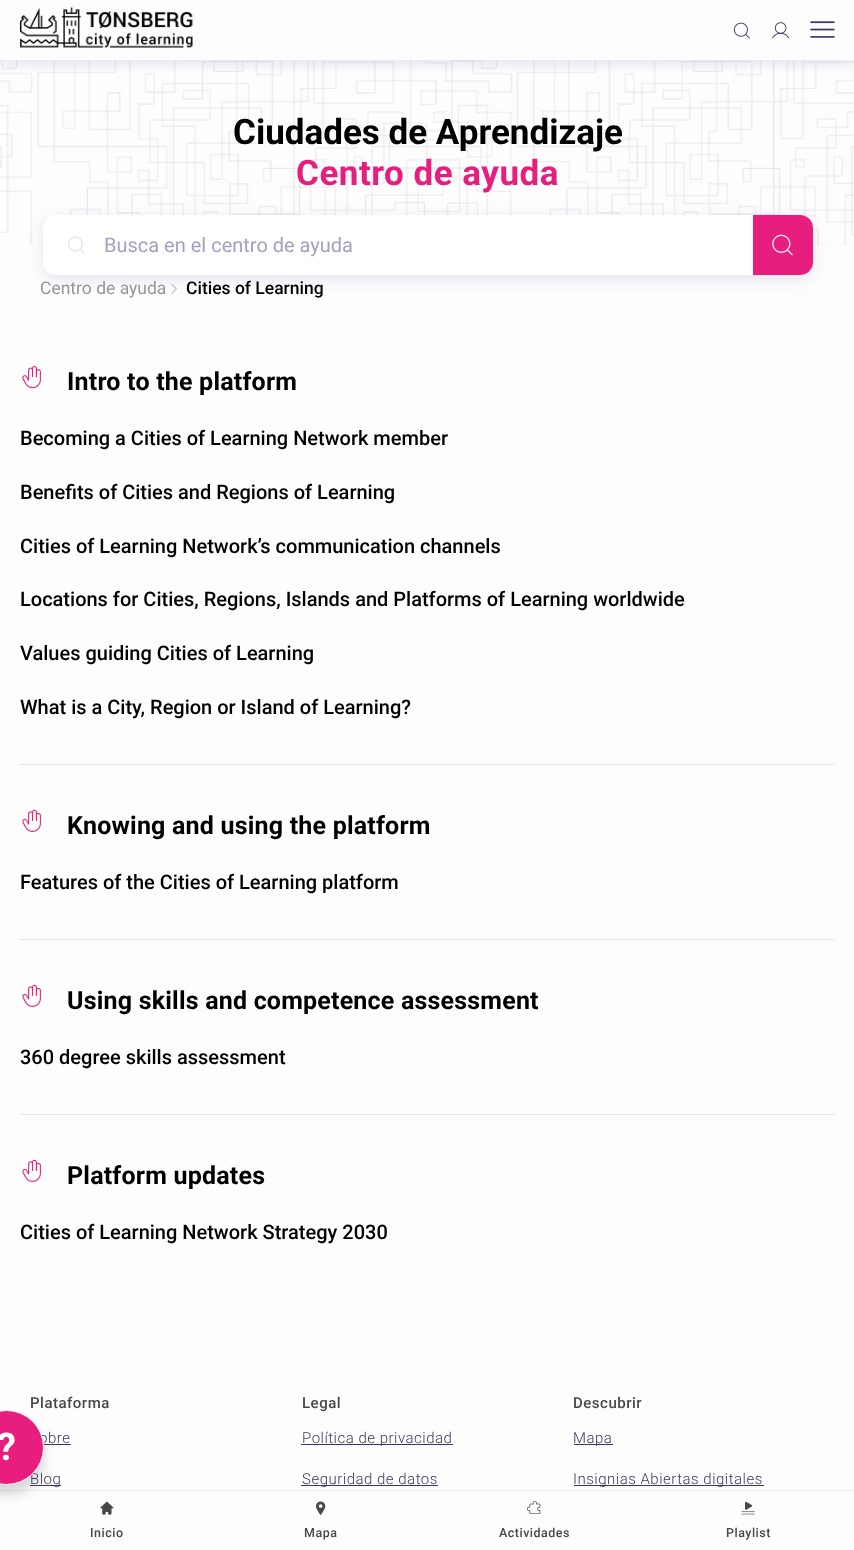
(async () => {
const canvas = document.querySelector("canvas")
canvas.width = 854
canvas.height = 1550
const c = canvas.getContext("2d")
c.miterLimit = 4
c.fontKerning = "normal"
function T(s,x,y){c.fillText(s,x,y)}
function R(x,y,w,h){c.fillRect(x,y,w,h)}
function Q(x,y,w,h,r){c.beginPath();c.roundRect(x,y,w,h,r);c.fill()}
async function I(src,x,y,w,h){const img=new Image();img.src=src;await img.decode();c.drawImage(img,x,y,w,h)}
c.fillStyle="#fdfdfd"
R(0,0,854,1550)
c.save()
c.beginPath()
c.rect(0,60,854,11)
c.clip()
c.fillStyle="#3006721c"
c.filter="blur(7.5px)"
c.beginPath()
c.rect(0,4,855,60)
c.fill()
c.filter="none"
c.restore()
await I("1.png",20,7,173,41)
await I("2.png",733,22,17,17)
await I("3.png",772,22,18,17)
await I("4.png",810,21,25,17)
await I("5.png",0,60,854,185)
c.font="bold 35px Roboto"
c.fillStyle="#000"
T("Ciudades de Aprendizaje",233,144)
c.letterSpacing="0.5px"
c.fillStyle="#e71e7d"
T("Centro de ayuda",296,185)
c.fillStyle="#3006721c"
c.filter="blur(7.5px)"
c.beginPath()
c.roundRect(43,219,770,60,13)
c.fill()
c.filter="none"
c.fillStyle="#fff"
Q(43,215,770,60,13)
await I("6.png",68,236,17,18)
c.letterSpacing="0px"
c.font="20px Roboto"
c.fillStyle="#a59fc0"
T("Busca en el centro de ayuda",104,252)
c.fillStyle="#e71e7d"
c.beginPath()
c.roundRect(753,215,60,60,[0,13,13,0])
c.fill()
await I("7.png",772,234,21,22)
c.font="17.5px Roboto"
c.fillStyle="#969697"
T("Centro de ayuda",40,294)
await I("8.png",171,284,6,10)
c.font="500 17.5px Roboto"
c.fillStyle="#000"
T("Cities of Learning",186,294)
c.fillStyle="#e5e3ed"
R(20,764,815,1)
await I("9.png",22,366,19,23)
c.letterSpacing="0.2px"
c.font="bold 25px Roboto"
c.fillStyle="#000"
T("Intro to the platform",67,390)
c.letterSpacing="0px"
c.font="500 20px Roboto"
T("Becoming a Cities of Learning Network member",20,445)
T("Benefits of Cities and Regions of Learning",20,499)
T("Cities of Learning Network’s communication channels",20,553)
T("Locations for Cities, Regions, Islands and Platforms of Learning worldwide",20,606)
T("Values guiding Cities of Learning",20,660)
T("What is a City, Region or Island of Learning?",20,714)
c.fillStyle="#e5e3ed"
R(20,939,815,1)
await I("10.png",22,809,19,23)
c.letterSpacing="0.2px"
c.font="bold 25px Roboto"
c.fillStyle="#000"
T("Knowing and using the platform",67,834)
c.letterSpacing="0px"
c.font="500 20px Roboto"
T("Features of the Cities of Learning platform",20,889)
c.fillStyle="#e5e3ed"
R(20,1114,815,1)
await I("10.png",22,984,19,23)
c.letterSpacing="0.2px"
c.font="bold 25px Roboto"
c.fillStyle="#000"
T("Using skills and competence assessment",67,1009)
c.letterSpacing="0px"
c.font="500 20px Roboto"
T("360 degree skills assessment",20,1064)
await I("10.png",22,1159,19,23)
c.letterSpacing="0.2px"
c.font="bold 25px Roboto"
T("Platform updates",67,1184)
c.letterSpacing="0px"
c.font="500 20px Roboto"
T("Cities of Learning Network Strategy 2030",20,1239)
c.fillStyle="#3e3564"
R(43,1444,28,1)
R(30,1485,31,1)
c.fillStyle="#ededed"
R(0,1490,854,1)
c.fillStyle="#00000026"
c.filter="blur(6px)"
c.beginPath()
c.roundRect(-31,1420,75,75,37.5)
c.fill()
c.filter="none"
c.letterSpacing="0.5px"
c.font="300 15px Roboto"
c.fillStyle="#3e3564"
T("obre",39,1443)
T("Blog",30,1484)
c.fillStyle="#e71e7d"
c.beginPath()
c.arc(6.5,1447.5,37,0,7)
c.fill()
c.strokeStyle="#fff"
c.stroke()
c.letterSpacing="0px"
c.font="bold 38px Roboto"
c.fillStyle="#fff"
T("?",-3,1460)
c.letterSpacing="0.5px"
c.font="500 15px Roboto"
c.fillStyle="#484848"
T("Plataforma",30,1408)
T("Legal",302,1408)
c.fillStyle="#3e3564"
R(301,1444,152,1)
c.font="300 15px Roboto"
T("Política de privacidad",302,1443)
R(301,1485,137,1)
T("Seguridad de datos",302,1484)
c.font="500 15px Roboto"
c.fillStyle="#484848"
T("Descubrir",573,1408)
c.fillStyle="#3e3564"
R(574,1444,39,1)
c.font="300 15px Roboto"
T("Mapa",573,1443)
R(574,1485,190,1)
T("Insignias Abiertas digitales",573,1484)
await I("11.png",100,1501,14,14)
c.font="500 12.5px Roboto"
c.fillStyle="#484848"
T("Inicio",90,1537)
await I("12.png",315,1501,11,14)
T("Mapa",304,1537)
await I("13.png",526,1501,15,13)
T("Actividades",499,1537)
await I("14.png",741,1501,14,14)
T("Playlist",726,1537)
})()
